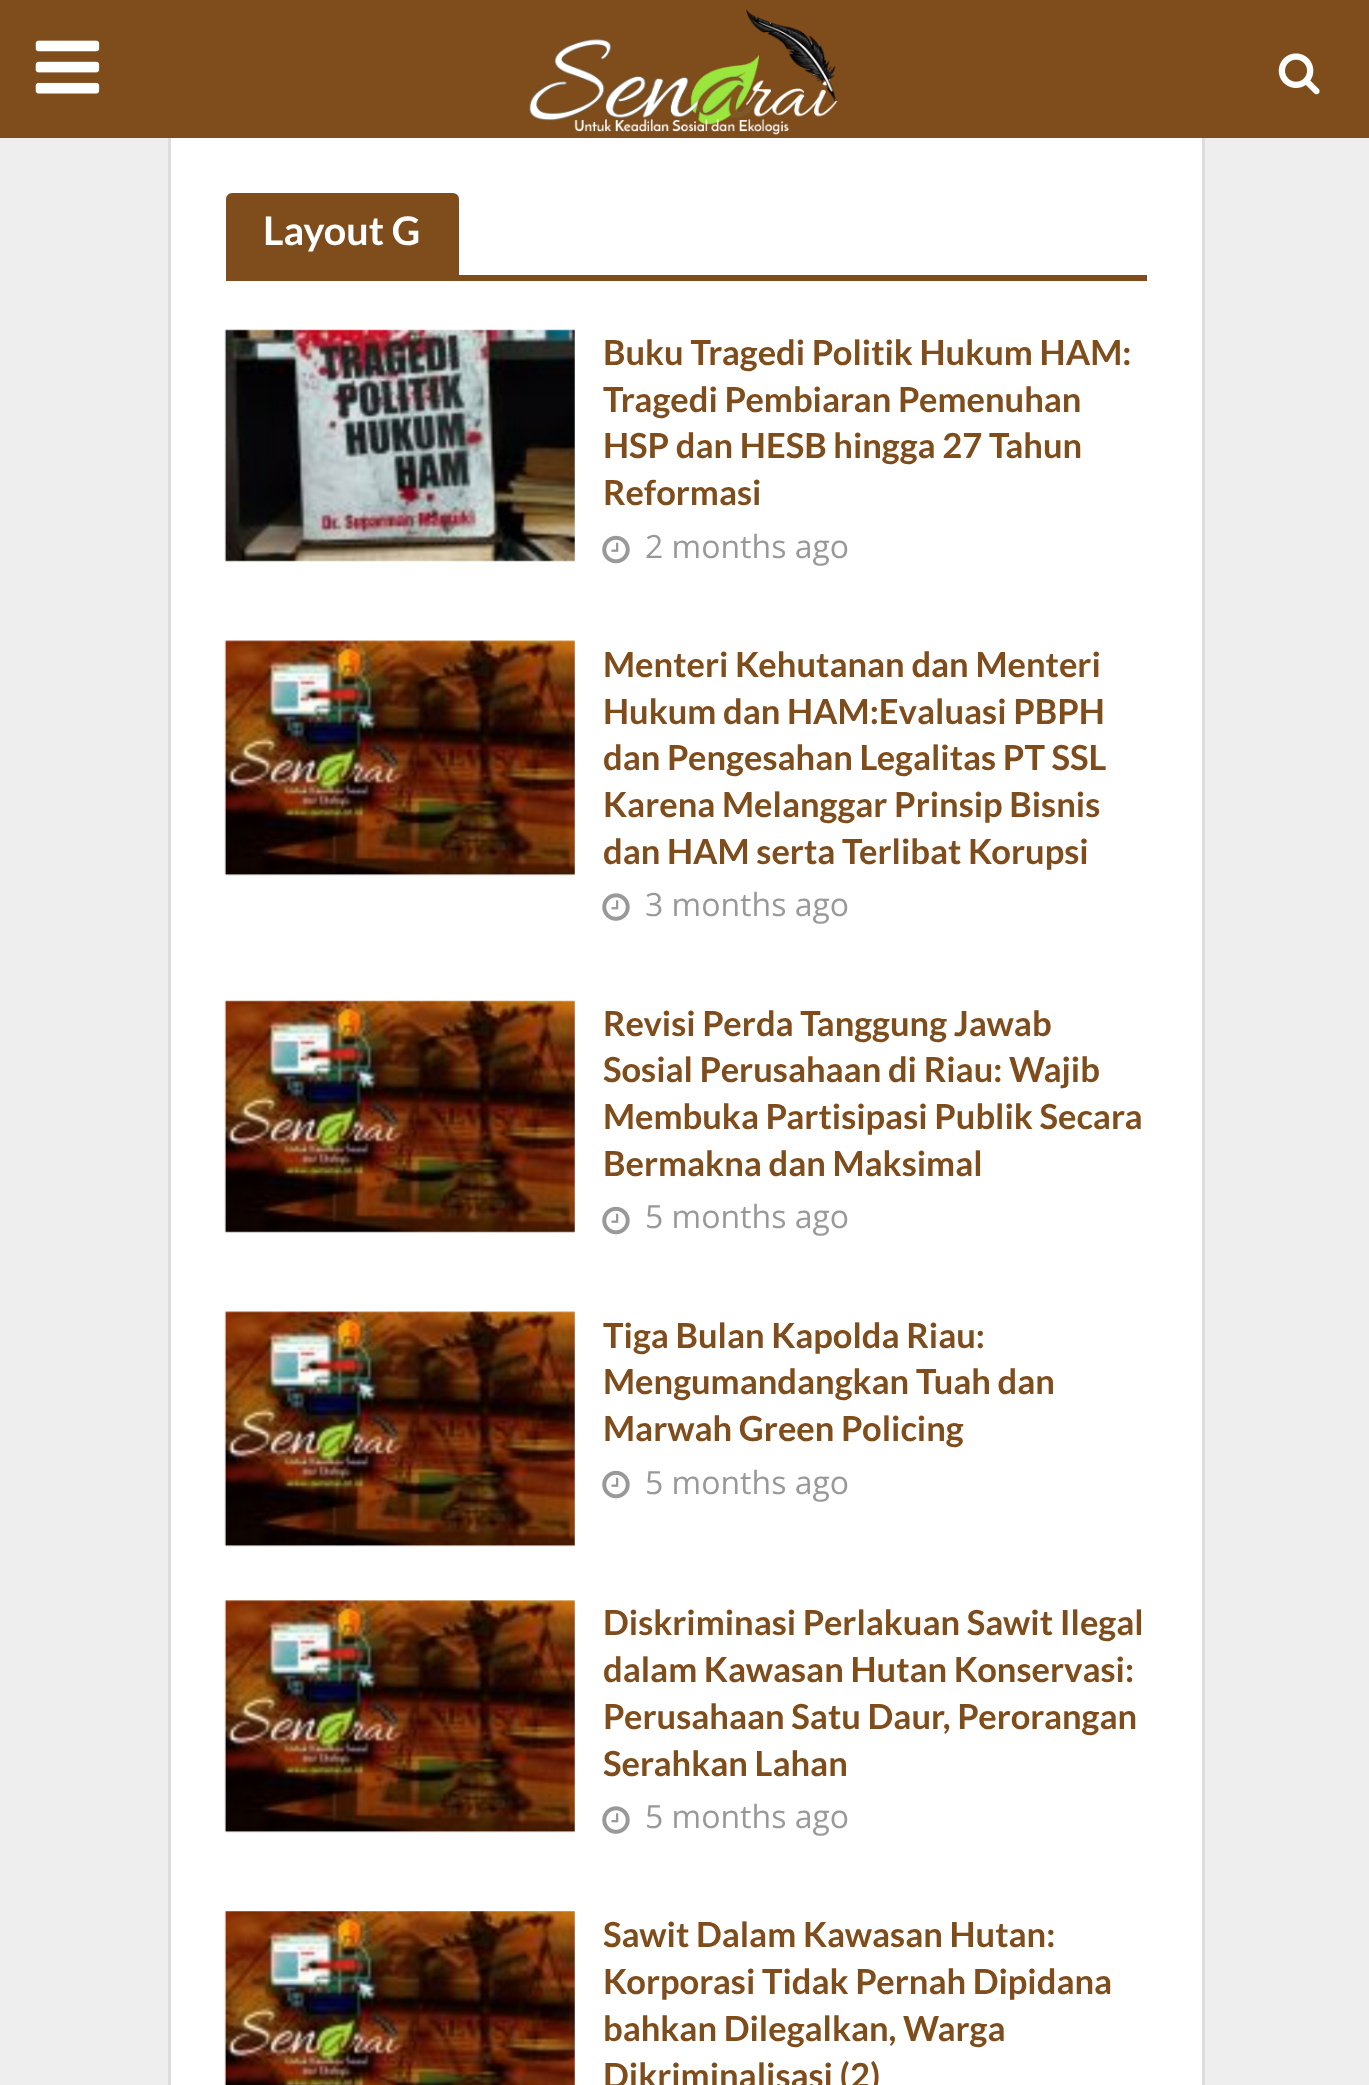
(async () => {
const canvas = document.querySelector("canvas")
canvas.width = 1369
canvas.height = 2085
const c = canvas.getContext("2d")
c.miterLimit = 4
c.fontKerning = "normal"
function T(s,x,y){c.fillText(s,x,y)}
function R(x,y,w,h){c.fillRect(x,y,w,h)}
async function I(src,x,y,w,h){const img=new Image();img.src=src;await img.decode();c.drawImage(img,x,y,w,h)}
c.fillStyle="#eee"
R(0,0,1369,2085)
c.strokeStyle="#ddd"
c.lineWidth=3
c.strokeRect(169.5,136.5,1034,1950)
c.fillStyle="#7f4c1b"
R(0,0,1369,138)
await I("1.png",35,40,65,54)
await I("2.png",529,9,309,126)
await I("3.png",1278,53,42,42)
c.fillStyle="#fff"
R(171,138,1031,1947)
c.fillStyle="#7f4c1b"
c.beginPath()
c.roundRect(226,193,233,82,[6,6,0,0])
c.fill()
c.font="bold 39.5px Lato"
c.fillStyle="#fff"
T("Layout G",263,245)
c.fillStyle="#7f4c1b"
R(226,275,921,6)
c.fillStyle="#f2f2f2"
R(226,330,349,231)
await I("4.png",224,329,351,233)
c.font="bold 34.5px Lato"
c.fillStyle="#7f4c1b"
T("Buku Tragedi Politik Hukum HAM:",603,365)
T("Tragedi Pembiaran Pemenuhan",603,412)
T("HSP dan HESB hingga 27 Tahun",603,458)
T("Reformasi",603,505)
await I("5.png",602,535,28,29)
c.font="32px Open Sans"
c.fillStyle="#999"
T("2 months ago",645,558)
c.fillStyle="#f2f2f2"
R(226,641,349,234)
await I("6.png",224,640,351,236)
c.font="bold 34.5px Lato"
c.fillStyle="#7f4c1b"
T("Menteri Kehutanan dan Menteri",603,677)
T("Hukum dan HAM:Evaluasi PBPH",603,724)
T("dan Pengesahan Legalitas PT SSL",603,770)
T("Karena Melanggar Prinsip Bisnis",603,817)
T("dan HAM serta Terlibat Korupsi",603,864)
await I("7.png",602,893,28,28)
c.font="32px Open Sans"
c.fillStyle="#999"
T("3 months ago",645,916)
c.fillStyle="#f2f2f2"
R(226,1001,349,231)
await I("8.png",224,1000,351,233)
c.font="bold 34.5px Lato"
c.fillStyle="#7f4c1b"
T("Revisi Perda Tanggung Jawab",603,1036)
T("Sosial Perusahaan di Riau: Wajib",603,1082)
T("Membuka Partisipasi Publik Secara",603,1129)
T("Bermakna dan Maksimal",603,1176)
await I("5.png",602,1206,28,29)
c.font="32px Open Sans"
c.fillStyle="#999"
T("5 months ago",645,1228)
c.fillStyle="#f2f2f2"
R(226,1312,349,234)
await I("9.png",224,1311,351,236)
c.font="bold 34.5px Lato"
c.fillStyle="#7f4c1b"
T("Tiga Bulan Kapolda Riau:",603,1348)
T("Mengumandangkan Tuah dan",603,1394)
T("Marwah Green Policing",603,1441)
await I("5.png",602,1470,28,29)
c.font="32px Open Sans"
c.fillStyle="#999"
T("5 months ago",645,1494)
c.fillStyle="#f2f2f2"
R(226,1601,349,231)
await I("10.png",224,1600,351,233)
c.font="bold 34.5px Lato"
c.fillStyle="#7f4c1b"
T("Diskriminasi Perlakuan Sawit Ilegal",603,1635)
T("dalam Kawasan Hutan Konservasi:",603,1682)
T("Perusahaan Satu Daur, Perorangan",603,1729)
T("Serahkan Lahan",603,1776)
await I("7.png",602,1806,28,28)
c.font="32px Open Sans"
c.fillStyle="#999"
T("5 months ago",645,1828)
c.fillStyle="#f2f2f2"
R(226,1911,349,174)
await I("11.png",224,1911,351,174)
c.font="bold 34.5px Lato"
c.fillStyle="#7f4c1b"
T("Sawit Dalam Kawasan Hutan:",603,1947)
T("Korporasi Tidak Pernah Dipidana",603,1994)
T("bahkan Dilegalkan, Warga",603,2041)
T("Dikriminalisasi (2)",603,2088)
})()
